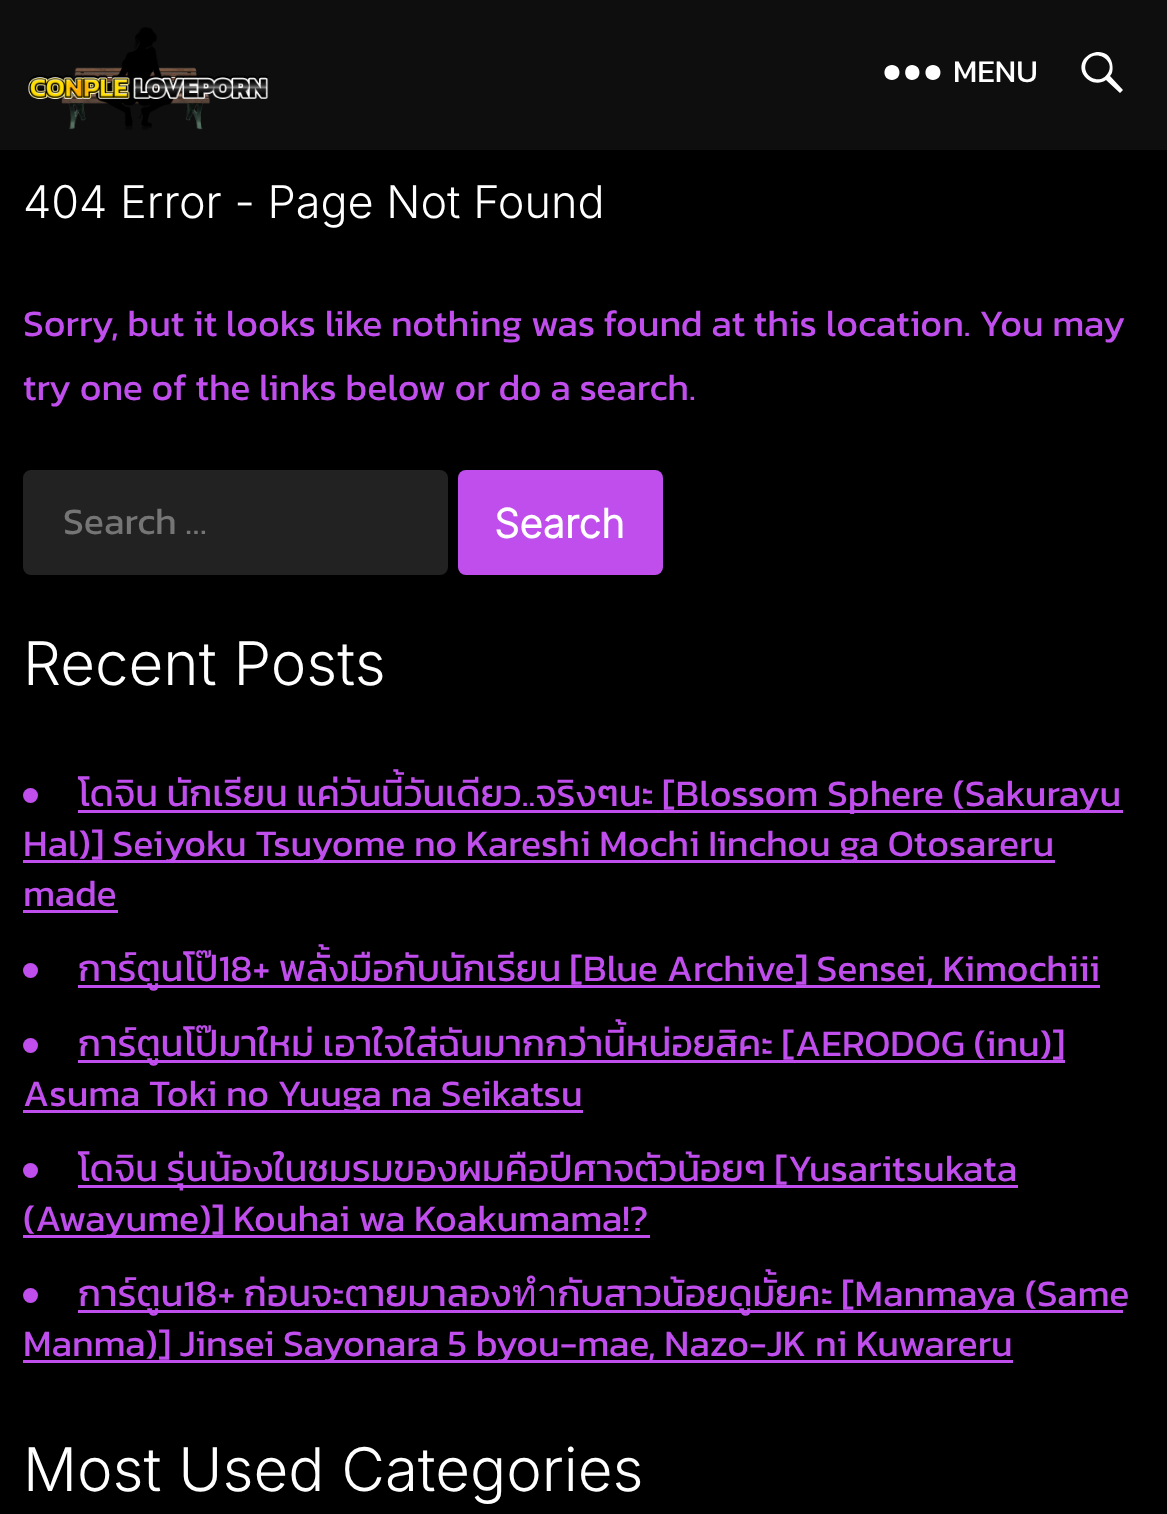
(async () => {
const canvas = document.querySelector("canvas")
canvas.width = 1167
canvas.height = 1514
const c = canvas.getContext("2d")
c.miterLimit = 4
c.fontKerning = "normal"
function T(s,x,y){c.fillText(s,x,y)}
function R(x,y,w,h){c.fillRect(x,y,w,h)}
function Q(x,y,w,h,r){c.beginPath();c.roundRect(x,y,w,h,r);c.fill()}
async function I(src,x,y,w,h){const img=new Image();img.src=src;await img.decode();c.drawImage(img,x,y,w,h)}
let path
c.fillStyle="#000"
R(0,0,1167,1514)
c.fillStyle="#0e0e0e"
R(0,0,1167,150)
await I("1.png",28,27,241,103)
c.font="32px Kanit"
c.fillStyle="#fff"
T("MENU",953,82)
path = new Path2D("M892 80c-10 0-10-15 0-15c10 0 10 15 0 15zm20 0c-9 0-9-15 0-15c10 0 10 15 0 15zm21 0c-10 0-10-15 0-15c10 0 10 15 0 15z")
c.fill(path,"evenodd")
path = new Path2D("M1123 90l-3 3l-14-13c-7 5-18 3-23-6c-9-20 24-32 29-11c1 5 1 10-2 13zm-36-29c-8 14 13 26 21 12c8-13-13-25-21-12z")
c.fill(path)
c.font="300 45px Inter"
T("404 Error - Page Not Found",23,218)
c.font="37.5px Kanit"
c.fillStyle="#c04eed"
T("Sorry, but it looks like nothing was found at this location. You may",23,336)
T("try one of the links below or do a search.",23,400)
c.fillStyle="#222"
c.beginPath()
c.roundRect(24.5,471.5,422,102,6.5)
c.fill()
c.strokeStyle="#222"
c.lineWidth=3
c.stroke()
c.fillStyle="#757575"
T("Search …",63,534)
c.fillStyle="#c04eed"
Q(458,470,205,105,8)
c.font="bold 40px Inter"
c.fillStyle="#fff"
T("Search",494,538)
c.font="300 60px Inter"
T("Recent Posts",23,685)
c.fillStyle="#c04eed"
c.beginPath()
c.arc(30.5,795.5,7.5,0,7)
c.fill()
R(78,810,1045,3)
c.font="37.5px Kanit"
T("โดจิน นักเรียน แค่วันนี้วันเดียว..จริงๆนะ [Blossom Sphere (Sakurayu",78,806)
R(23,860,1032,3)
T("Hal)] Seiyoku Tsuyome no Kareshi Mochi Iinchou ga Otosareru",23,856)
T("made",23,906)
R(23,910,95,3)
c.beginPath()
c.arc(30.5,970.5,7.5,0,7)
c.fill()
R(78,985,1022,3)
T("การ์ตูนโป๊18+ พลั้งมือกับนักเรียน [Blue Archive] Sensei, Kimochiii",78,981)
c.beginPath()
c.arc(30.5,1045.5,7.5,0,7)
c.fill()
R(78,1060,987,3)
T("การ์ตูนโป๊มาใหม่ เอาใจใส่ฉันมากกว่านี้หน่อยสิคะ [AERODOG (inu)]",78,1056)
R(23,1110,560,3)
T("Asuma Toki no Yuuga na Seikatsu",23,1106)
c.beginPath()
c.arc(30.5,1170.5,7.5,0,7)
c.fill()
R(78,1185,940,3)
T("โดจิน รุ่นน้องในชมรมของผมคือปีศาจตัวน้อยๆ [Yusaritsukata",78,1181)
R(23,1235,627,3)
T("(Awayume)] Kouhai wa Koakumama!?",23,1231)
c.beginPath()
c.arc(30.5,1295.5,7.5,0,7)
c.fill()
R(78,1310,1045,3)
T("การ์ตูน18+ ก่อนจะตายมาลองทำกับสาวน้อยดูมั้ยคะ [Manmaya (Same",78,1306)
R(23,1360,990,3)
T("Manma)] Jinsei Sayonara 5 byou-mae, Nazo-JK ni Kuwareru",23,1356)
c.font="300 60px Inter"
c.fillStyle="#fff"
T("Most Used Categories",23,1491)
})()
